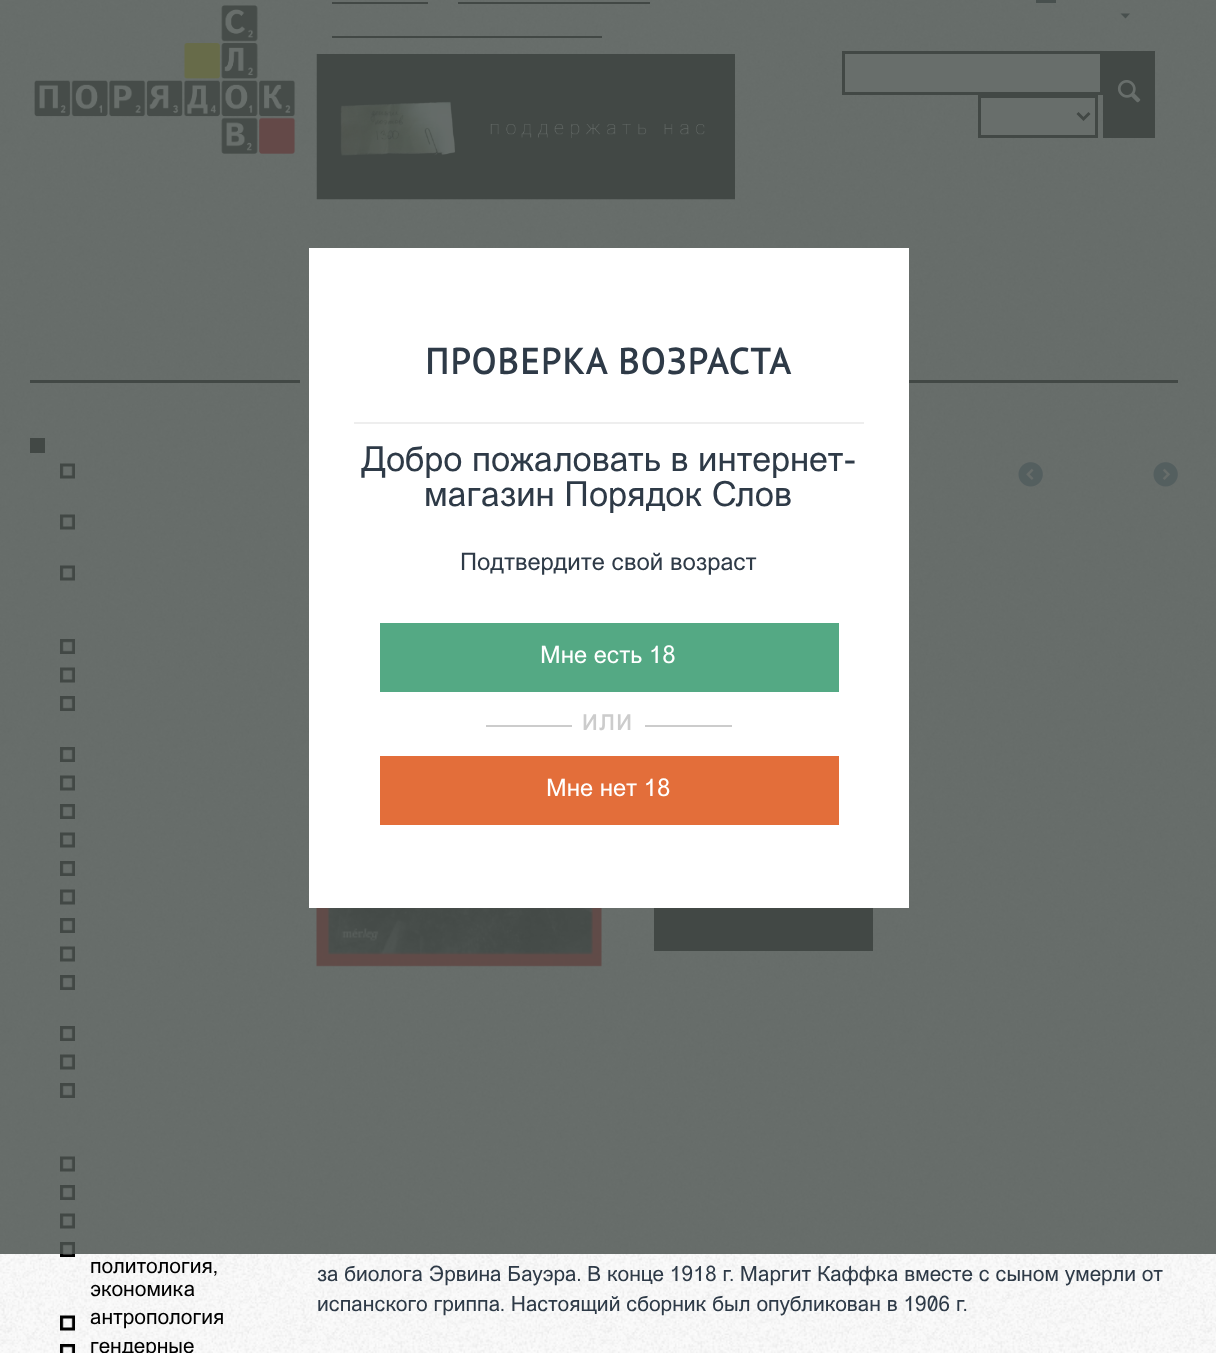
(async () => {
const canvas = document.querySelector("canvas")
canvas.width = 1216
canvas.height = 1353
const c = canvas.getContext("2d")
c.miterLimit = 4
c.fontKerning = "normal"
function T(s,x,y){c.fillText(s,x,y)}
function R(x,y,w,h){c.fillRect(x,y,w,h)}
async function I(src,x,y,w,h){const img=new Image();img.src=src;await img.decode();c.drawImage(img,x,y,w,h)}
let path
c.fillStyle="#fff"
R(0,0,1216,1353)
await I("1.png",0,0,1216,1353)
await I("2.png",34,5,262,149)
c.fillStyle="#000"
R(332,2,96,2)
R(458,2,192,2)
R(332,36,270,2)
await I("3.png",316,54,419,146)
c.fillStyle="#2d3540"
R(1036,0,20,3)
path = new Path2D("M1125.5 18.5l-5-5h9.5z")
c.fill(path)
c.fillStyle="#fff"
c.beginPath()
c.rect(843.5,52.5,258,41)
c.fill()
c.strokeStyle="#000"
c.lineWidth=3
c.stroke()
c.fillStyle="#000"
R(1103,51,52,87)
await I("4.png",1117,80,24,23)
c.fillStyle="#fff"
c.beginPath()
c.rect(979.5,96.5,117,40)
c.fill()
c.stroke()
path = new Path2D("M1077.5 113l6 6l6-6")
c.stroke(path)
c.fillStyle="#000"
R(30,380,270,3)
R(30,438,15,15)
await I("5.png",60,463,15,16)
await I("6.png",60,514,15,16)
await I("7.png",60,565,15,16)
await I("8.png",60,639,15,15)
await I("9.png",60,667,15,16)
await I("10.png",60,696,15,15)
await I("11.png",60,747,15,15)
await I("12.png",60,775,15,16)
await I("13.png",60,804,15,15)
await I("14.png",60,832,15,16)
await I("15.png",60,861,15,15)
await I("16.png",60,889,15,16)
await I("17.png",60,918,15,15)
await I("18.png",60,946,15,16)
await I("19.png",60,975,15,15)
await I("20.png",60,1026,15,15)
await I("21.png",60,1054,15,16)
await I("22.png",60,1083,15,15)
await I("23.png",60,1156,15,16)
await I("24.png",60,1185,15,15)
await I("25.png",60,1213,15,16)
await I("26.png",60,1242,15,15)
R(909,380,269,3)
await I("29.png",1018,462,25,25)
await I("30.png",1153,462,25,25)
await I("31.png",316,908,286,59)
R(654,908,219,43)
c.fillStyle="#4e5551d9"
R(0,0,1216,1254)
c.fillStyle="#fff"
R(309,248,600,660)
c.fillStyle="#eee"
R(354,422,510,2)
c.letterSpacing="1.5px"
c.font="bold 36px PT Sans"
c.fillStyle="#2e3a47"
T("ПРОВЕРКА ВОЗРАСТА",425,374)
c.letterSpacing="0px"
c.font="34.5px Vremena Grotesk"
T("Добро пожаловать в интернет-",361,471)
T("магазин Порядок Слов",424,506)
c.font="24px Vremena Grotesk"
T("Подтвердите свой возраст",460,570)
c.fillStyle="#54a984"
R(380,623,459,69)
c.fillStyle="#fff"
T("Мне есть 18",540,663)
c.fillStyle="#ccc"
R(486,725,246,2)
c.fillStyle="#fff"
R(572,725,73,2)
c.letterSpacing="2px"
c.font="bold 21px Vremena Grotesk"
c.fillStyle="#ccc"
T("ИЛИ",582,730)
c.fillStyle="#e36e3a"
R(380,756,459,69)
c.letterSpacing="0px"
c.font="24px Vremena Grotesk"
c.fillStyle="#fff"
T("Мне нет 18",546,796)
c.font="21px Vremena Grotesk"
c.fillStyle="#000"
T("политология,",90,1273)
T("экономика",90,1296)
await I("27.png",60,1315,15,16)
T("антропология",90,1324)
await I("28.png",60,1344,15,9)
T("гендерные",90,1353)
c.fillStyle="#2e3a47"
T("за биолога Эрвина Бауэра. В конце 1918 г. Маргит Каффка вместе с сыном умерли от",317,1281)
T("испанского гриппа. Настоящий сборник был опубликован в 1906 г.",317,1311)
})()
